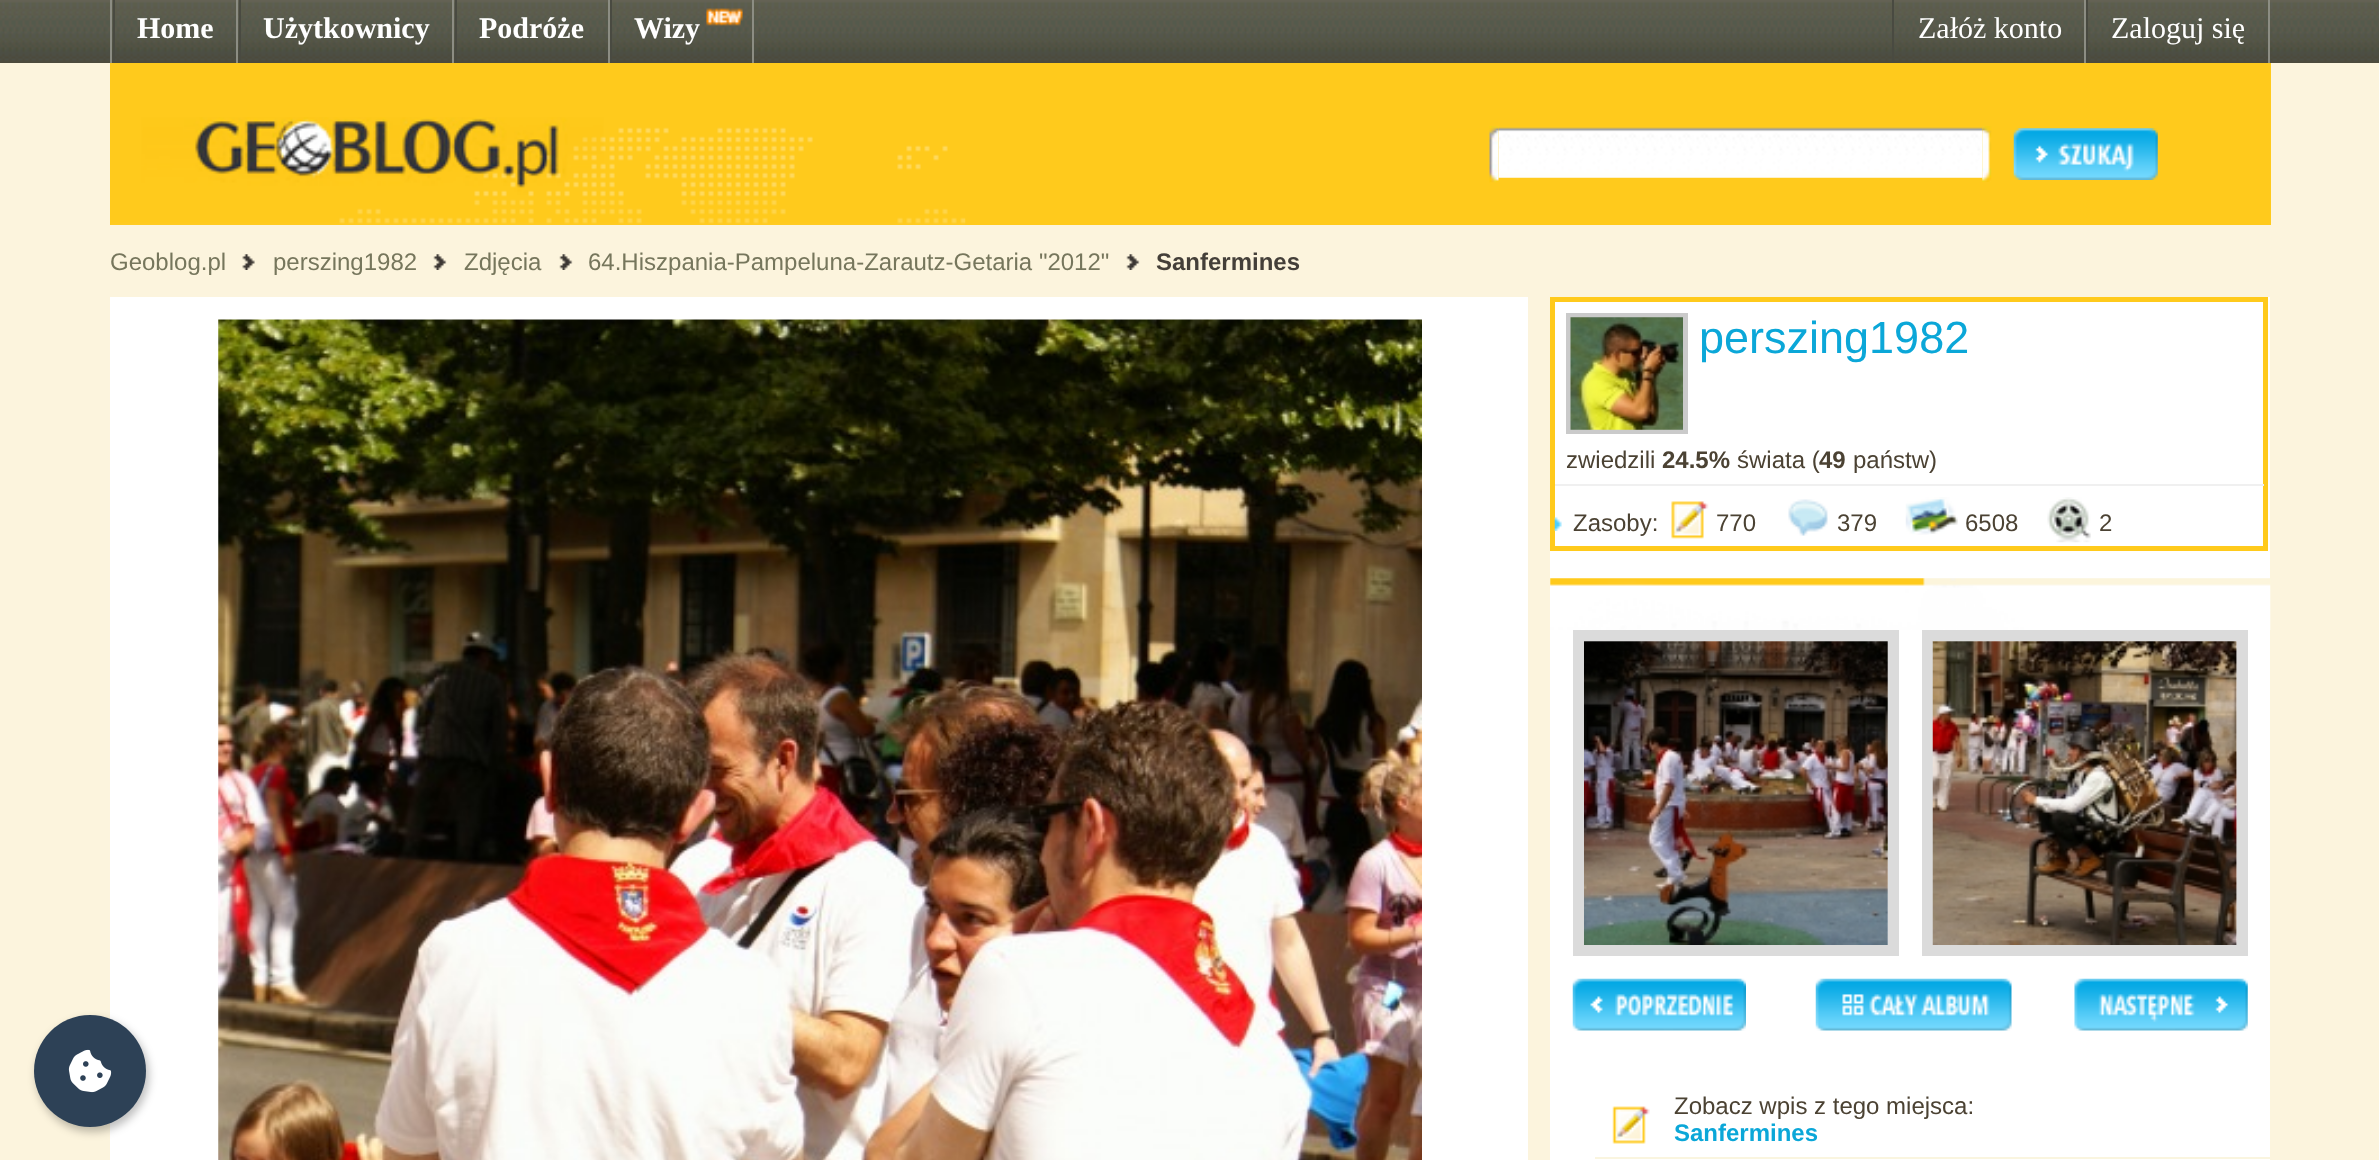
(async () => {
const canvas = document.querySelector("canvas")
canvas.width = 2379
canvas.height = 1160
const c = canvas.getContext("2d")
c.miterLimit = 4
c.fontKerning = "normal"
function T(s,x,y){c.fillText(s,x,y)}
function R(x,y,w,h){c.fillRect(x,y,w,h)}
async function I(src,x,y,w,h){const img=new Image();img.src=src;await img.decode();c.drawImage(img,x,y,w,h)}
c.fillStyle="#fcf4dd"
R(0,0,2379,1160)
await I("1.png",0,0,2379,63)
c.fillStyle="#fff"
R(110,297,1418,863)
c.fillStyle="#00000040"
c.filter="blur(4.5px)"
c.beginPath()
c.roundRect(36,1019,113,113,56.5)
c.fill()
c.filter="none"
c.fillStyle="#2d4156"
c.beginPath()
c.arc(90,1071,56,0,7)
c.fill()
await I("2.png",68,1049,44,44)
c.fillStyle="#8c8d83"
R(110,0,2,63)
R(236,0,2,63)
c.fillStyle="#494a41"
R(113,0,2,63)
c.font="bold 30px Liberation Serif"
c.fillStyle="#fff"
T("Home",137,38)
c.fillStyle="#8c8d83"
R(452,0,2,63)
c.fillStyle="#494a41"
R(239,0,2,63)
c.fillStyle="#fff"
T("Użytkownicy",263,38)
c.fillStyle="#8c8d83"
R(608,0,2,63)
c.fillStyle="#494a41"
R(455,0,2,63)
c.fillStyle="#fff"
T("Podróże",479,38)
c.fillStyle="#8c8d83"
R(752,0,2,63)
c.fillStyle="#494a41"
R(610,0,2,63)
c.fillStyle="#fff"
T("Wizy",634,38)
await I("3.png",706,8,37,18)
c.fillStyle="#8c8d83"
R(2084,0,2,63)
c.fillStyle="#494a41"
R(1892,0,2,63)
c.font="30px Liberation Serif"
c.fillStyle="#fff"
T("Załóż konto",1918,38)
c.fillStyle="#8c8d83"
R(2268,0,2,63)
c.fillStyle="#494a41"
R(2086,0,2,63)
c.fillStyle="#fff"
T("Zaloguj się",2111,38)
c.fillStyle="#ffca1c"
R(110,63,2161,162)
await I("4.png",111,117,855,108)
await I("5.png",1489,126,10,57)
await I("6.png",1498,126,485,52)
await I("7.png",1982,126,10,56)
await I("8.png",2013,128,145,52)
c.font="24px Liberation Sans"
c.fillStyle="#76765c"
T("Geoblog.pl",110,270)
await I("9.png",242,254,13,16)
T("perszing1982",273,270)
await I("10.png",433,254,14,16)
T("Zdjęcia",464,270)
await I("10.png",559,254,14,16)
T("64.Hiszpania-Pampeluna-Zarautz-Getaria \"2012\"",588,270)
await I("10.png",1126,254,14,16)
c.font="bold 24px Liberation Sans"
c.fillStyle="#443f39"
T("Sanfermines",1156,270)
await I("11.png",218,319,1204,841)
c.fillStyle="#fff"
R(1550,297,720,863)
c.strokeStyle="#ffca1c"
c.lineWidth=5
c.strokeRect(1552.5,299.5,713,249)
c.fillStyle="#f0f0f0"
R(1555,484,709,2)
c.strokeStyle="#cacaca"
c.strokeRect(1568.5,315.5,117,116)
await I("12.png",1570,317,113,113)
c.font="45px Liberation Sans"
c.fillStyle="#0ba7d8"
T("perszing1982",1699,353)
c.font="24px Liberation Sans"
c.fillStyle="#4b4233"
T("zwiedzili",1566,468)
c.font="bold 24px Liberation Sans"
T("24.5%",1662,468)
c.font="24px Liberation Sans"
T("świata (",1737,468)
c.font="bold 24px Liberation Sans"
T("49",1819,468)
c.font="24px Liberation Sans"
T("państw)",1853,468)
await I("13.png",1554,517,8,14)
T("Zasoby:",1573,531)
await I("14.png",1671,501,38,38)
T("770",1716,531)
await I("15.png",1788,499,40,37)
T("379",1837,531)
await I("16.png",1905,497,53,38)
T("6508",1965,531)
await I("17.png",2047,497,44,46)
T("2",2099,531)
await I("18.png",1550,578,721,52)
c.strokeStyle="#dbdbdb"
c.lineWidth=11
c.strokeRect(1578.5,635.5,315,315)
await I("19.png",1584,641,304,304)
c.strokeRect(1927.5,635.5,315,315)
await I("20.png",1932,641,305,304)
await I("21.png",1572,978,174,53)
await I("22.png",1815,978,197,53)
await I("23.png",2074,978,174,53)
c.fillStyle="#faf5df"
R(1595,1157,675,2)
await I("24.png",1612,1106,38,38)
c.fillStyle="#4b4233"
T("Zobacz wpis z tego miejsca:",1674,1114)
c.font="bold 24px Liberation Sans"
c.fillStyle="#0ba7d8"
T("Sanfermines",1674,1141)
})()
